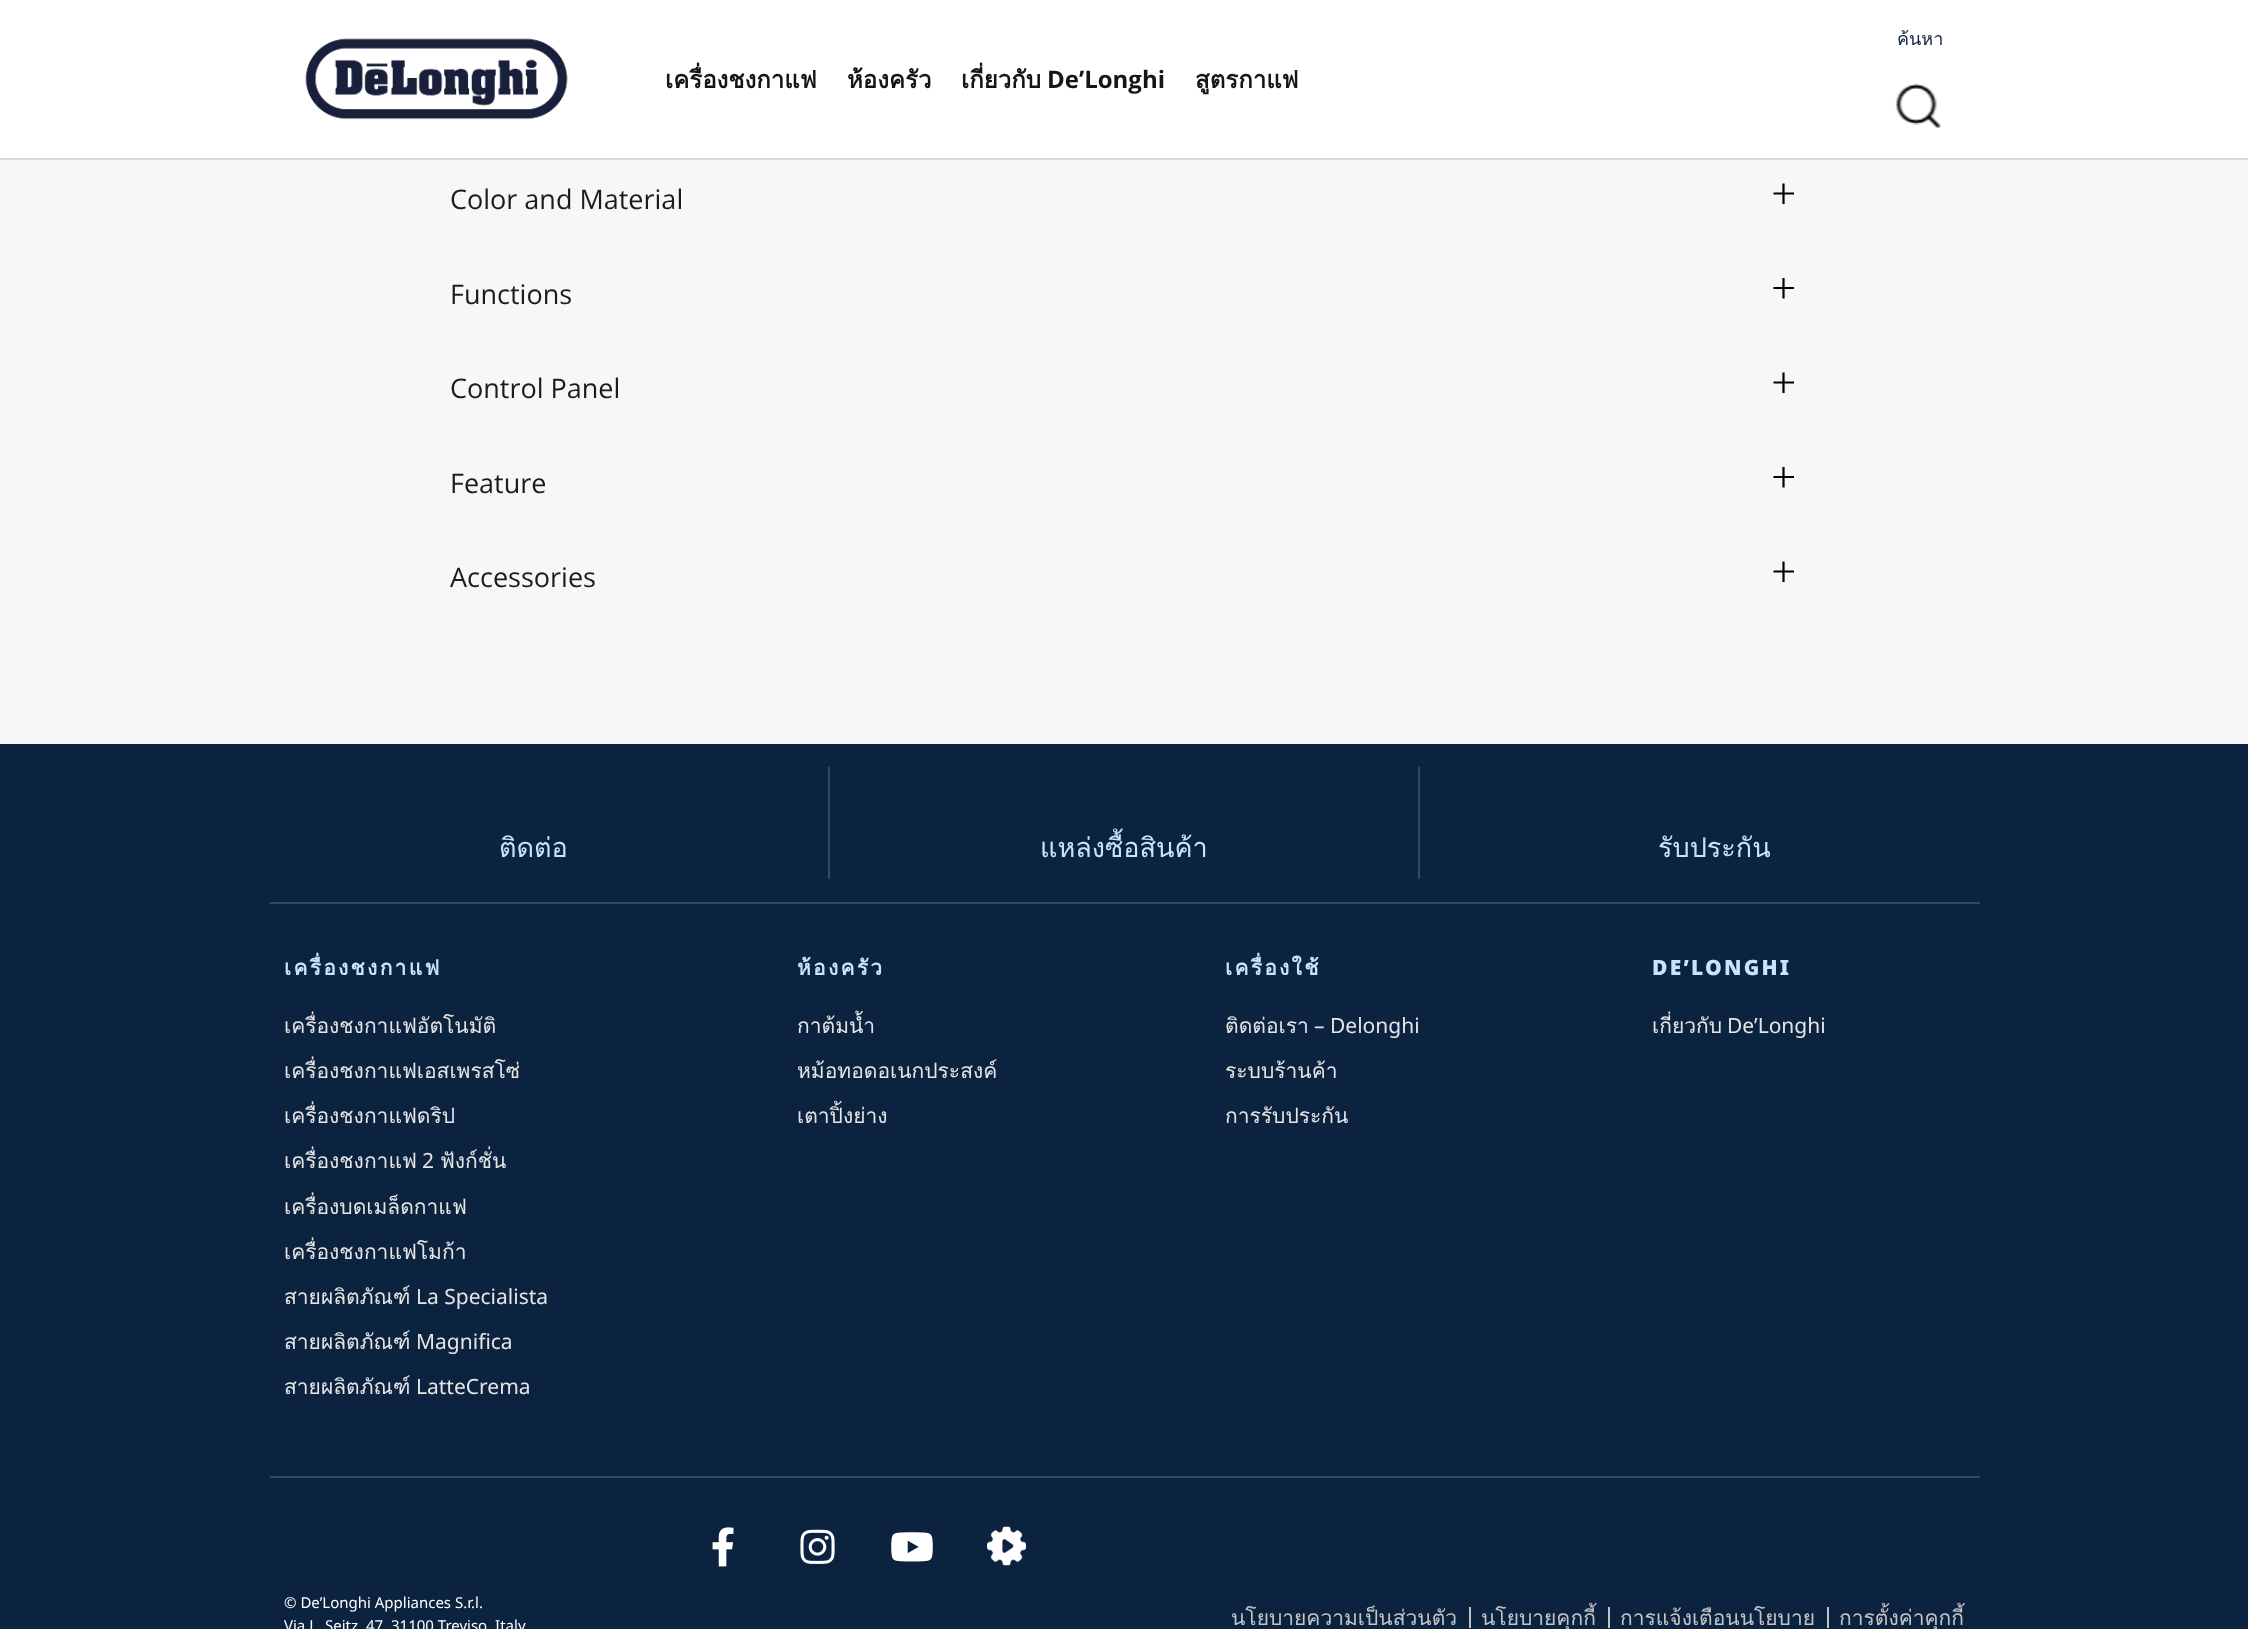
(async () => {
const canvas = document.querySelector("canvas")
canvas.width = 2248
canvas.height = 1629
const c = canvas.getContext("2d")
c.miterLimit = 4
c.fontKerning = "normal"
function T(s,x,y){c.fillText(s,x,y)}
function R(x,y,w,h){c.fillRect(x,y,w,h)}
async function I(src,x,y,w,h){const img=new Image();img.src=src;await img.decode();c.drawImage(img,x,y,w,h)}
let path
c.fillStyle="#f7f7f7"
R(0,0,2248,1629)
c.fillStyle="#fff"
R(0,0,2248,158)
c.fillStyle="#d9d9d9"
R(0,158,2248,2)
c.font="18px Loma"
c.fillStyle="#0c2340"
T("ค้นหา",1897,45)
await I("1.png",1895,83,47,45)
await I("2.png",305,38,263,82)
c.font="bold 24px Loma"
c.fillStyle="#131518"
T("เครื่องชงกาแฟ",665,88)
T("ห้องครัว",847,88)
T("เกี่ยวกับ",961,88)
c.font="bold 24px Open Sans"
T("De’Longhi",1047,88)
c.font="bold 24px Loma"
T("สูตรกาแฟ",1195,88)
c.font="27px Open Sans"
c.fillStyle="#1a1d1f"
T("Color and Material",450,209)
path = new Path2D("M1783.5 183.5v20.5m-10-10.5h20.5")
c.strokeStyle="#000"
c.lineWidth=2.2
c.lineJoin="round"
c.stroke(path)
T("Functions",450,304)
path = new Path2D("M1783.5 278v20.5m-10-10.5h20.5")
c.stroke(path)
T("Control Panel",450,398)
path = new Path2D("M1783.5 372.5v20.5m-10-10.5h20.5")
c.stroke(path)
T("Feature",450,493)
path = new Path2D("M1783.5 467v20.5m-10-10.5h20.5")
c.stroke(path)
T("Accessories",450,587)
path = new Path2D("M1783.5 561.5v20.5m-10-10.5h20.5")
c.stroke(path)
c.fillStyle="#0c2340"
R(0,744,2248,885)
c.fillStyle="#324965"
R(828,767,2,112)
c.font="27px Loma"
c.fillStyle="#c9e3f9"
T("ติดต่อ",499,857)
c.fillStyle="#324965"
R(1418,767,2,112)
c.fillStyle="#c9e3f9"
T("แหล่งซื้อสินค้า",1040,857)
T("รับประกัน",1658,857)
c.fillStyle="#324965"
R(270,902,1710,2)
c.letterSpacing="2.25px"
c.font="bold 21px Loma"
c.fillStyle="#c9e3f9"
T("เครื่องชงกาแฟ",284,975)
c.letterSpacing="0px"
c.font="21px Loma"
c.fillStyle="#e5e5e5"
T("เครื่องชงกาแฟอัตโนมัติ",284,1033)
T("เครื่องชงกาแฟเอสเพรสโซ่",284,1078)
T("เครื่องชงกาแฟดริป",284,1123)
T("เครื่องชงกาแฟ",284,1168)
c.font="21px Noto Sans"
T("2",422,1168)
c.font="21px Loma"
T("ฟังก์ชั่น",440,1168)
T("เครื่องบดเมล็ดกาแฟ",284,1214)
T("เครื่องชงกาแฟโมก้า",284,1259)
T("สายผลิตภัณฑ์",284,1304)
c.font="21px Noto Sans"
T("La Specialista",416,1304)
c.font="21px Loma"
T("สายผลิตภัณฑ์",284,1349)
c.font="21px Noto Sans"
T("Magnifica",416,1349)
c.font="21px Loma"
T("สายผลิตภัณฑ์",284,1394)
c.font="21px Noto Sans"
T("LatteCrema",416,1394)
c.letterSpacing="2.25px"
c.font="bold 21px Loma"
c.fillStyle="#c9e3f9"
T("ห้องครัว",797,975)
c.letterSpacing="0px"
c.font="21px Loma"
c.fillStyle="#e5e5e5"
T("กาต้มน้ำ",797,1033)
T("หม้อทอดอเนกประสงค์",797,1078)
T("เตาปิ้งย่าง",797,1123)
c.letterSpacing="2.25px"
c.font="bold 21px Loma"
c.fillStyle="#c9e3f9"
T("เครื่องใช้",1225,975)
c.letterSpacing="0px"
c.font="21px Loma"
c.fillStyle="#e5e5e5"
T("ติดต่อเรา",1225,1033)
c.font="21px Noto Sans"
T("– Delonghi",1314,1033)
c.font="21px Loma"
T("ระบบร้านค้า",1225,1078)
T("การรับประกัน",1225,1123)
c.letterSpacing="2.25px"
c.font="900 21px Noto Sans"
c.fillStyle="#c9e3f9"
T("DE’LONGHI",1652,975)
c.letterSpacing="0px"
c.font="21px Loma"
c.fillStyle="#e5e5e5"
T("เกี่ยวกับ",1652,1033)
c.font="21px Noto Sans"
T("De’Longhi",1727,1033)
c.fillStyle="#324965"
R(270,1476,1710,2)
await I("3.png",712,1527,22,40)
await I("4.png",800,1529,35,35)
await I("5.png",891,1532,42,30)
await I("6.png",987,1526,39,40)
c.font="15px Noto Sans"
c.fillStyle="#fff"
T("© De’Longhi Appliances S.r.l.",284,1608)
T("Via L. Seitz, 47, 31100 Treviso, Italy",284,1631)
c.font="21px Loma"
c.fillStyle="#c4c4c4"
T("นโยบายความเป็นส่วนตัว",1231,1625)
R(1469,1607,2,21)
T("นโยบายคุกกี้",1481,1625)
R(1608,1607,2,21)
T("การแจ้งเตือนนโยบาย",1620,1625)
R(1827,1607,2,21)
T("การตั้งค่าคุกกี้",1839,1625)
})()
